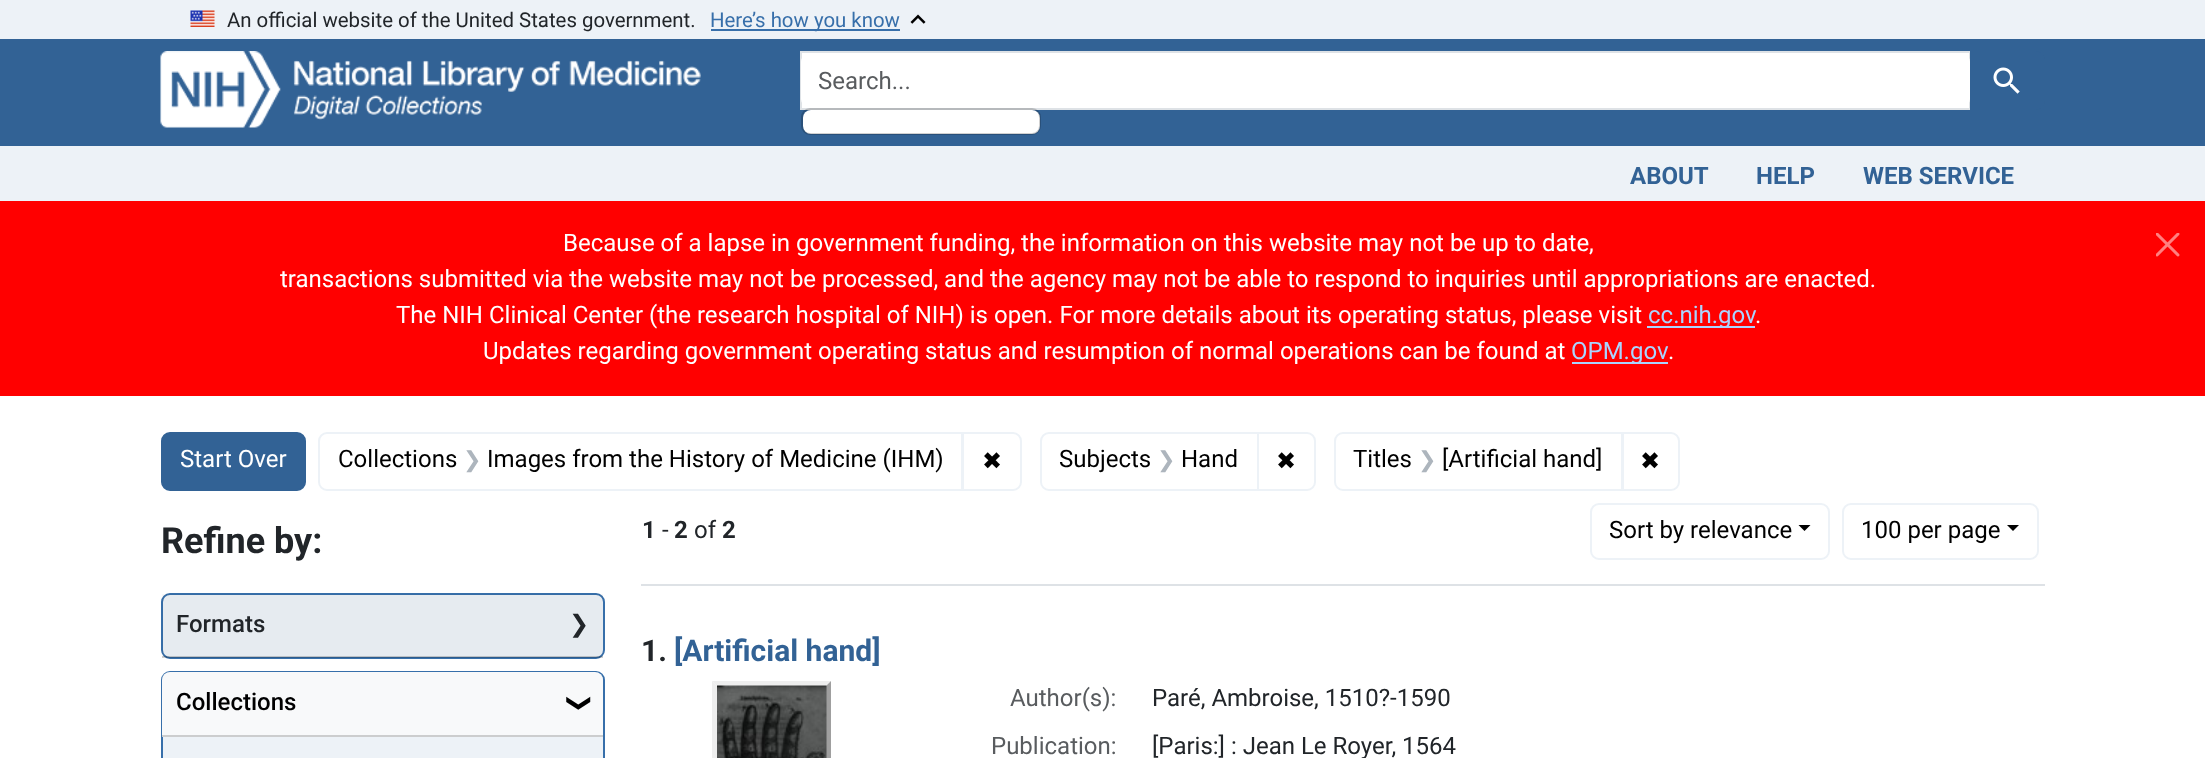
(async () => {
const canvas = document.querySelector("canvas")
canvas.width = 2205
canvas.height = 758
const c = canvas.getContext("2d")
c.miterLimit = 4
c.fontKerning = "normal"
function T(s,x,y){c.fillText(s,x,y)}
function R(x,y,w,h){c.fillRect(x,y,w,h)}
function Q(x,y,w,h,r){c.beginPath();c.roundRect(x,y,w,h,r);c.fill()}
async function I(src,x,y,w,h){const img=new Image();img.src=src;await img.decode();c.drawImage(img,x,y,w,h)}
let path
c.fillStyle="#fff"
R(0,0,2205,758)
c.fillStyle="#edf2f7"
R(0,0,2205,39)
await I("1.png",190,10,25,17)
c.font="20.4px Roboto"
c.fillStyle="#212529"
T("An official website of the United States government.",227,27)
c.fillStyle="#376faa"
R(711,29,189,2)
T("Here’s how you know",710,27)
await I("2.png",910,14,16,10)
c.fillStyle="#326295"
R(0,39,2205,107)
await I("3.png",160,51,541,77)
c.fillStyle="#fff"
c.beginPath()
c.rect(801,52,1169,57)
c.fill()
c.strokeStyle="#dee2e6"
c.lineWidth=2
c.stroke()
Q(801,53,1169,55,9)
c.font="24px Roboto"
c.fillStyle="#595c5f"
T("Search...",818,89)
c.fillStyle="#fff"
Q(803,110,237,24,8)
c.beginPath()
c.roundRect(802,109,238,25,8)
c.strokeStyle="#0000002e"
c.stroke()
c.fillStyle="#326295"
c.beginPath()
c.roundRect(1970,51,75,59,[0,9,9,0])
c.fill()
await I("4.png",1993,67,27,27)
c.fillStyle="#edf2f7"
R(0,146,2205,55)
c.font="bold 24px Roboto"
c.fillStyle="#326295"
T("ABOUT",1630,184)
T("HELP",1756,184)
T("WEB SERVICE",1863,184)
c.fillStyle="#f00"
R(0,201,2205,195)
c.font="24px Roboto"
c.fillStyle="#fff"
T("Because of a lapse in government funding, the information on this website may not be up to date,",563,251)
T("transactions submitted via the website may not be processed, and the agency may not be able to respond to inquiries until appropriations are enacted.",280,287)
T("The NIH Clinical Center (the research hospital of NIH) is open. For more details about its operating status, please visit",396,323)
c.fillStyle="#aad4ff"
R(1647,326,108,2)
T("cc.nih.gov",1648,323)
c.fillStyle="#fff"
T(".",1755,323)
T("Updates regarding government operating status and resumption of normal operations can be found at",483,359)
c.fillStyle="#aad4ff"
R(1572,362,96,2)
T("OPM.gov",1571,359)
c.fillStyle="#fff"
T(".",1668,359)
await I("5.png",2156,233,24,24)
c.fillStyle="#326295"
c.beginPath()
c.roundRect(162,433,143,57,8)
c.fill()
c.strokeStyle="#326295"
c.stroke()
c.fillStyle="#fff"
T("Start Over",180,467)
c.beginPath()
c.roundRect(319,433,643,57,[8,0,0,8])
c.strokeStyle="#edf2f7"
c.stroke()
c.fillStyle="#000"
T("Collections",338,467)
c.font="22px DejaVu Sans"
c.fillStyle="#adb5bd"
T("❯",463,467)
c.font="24px Roboto"
c.fillStyle="#000"
T("Images from the History of Medicine (IHM)",487,467)
c.beginPath()
c.roundRect(963,433,58,57,[0,8,8,0])
c.stroke()
c.font="24px DejaVu Sans"
T("✖",982,469)
c.beginPath()
c.roundRect(1041,433,217,57,[8,0,0,8])
c.stroke()
c.font="24px Roboto"
T("Subjects",1059,467)
c.font="22px DejaVu Sans"
c.fillStyle="#adb5bd"
T("❯",1157,467)
c.font="24px Roboto"
c.fillStyle="#000"
T("Hand",1181,467)
c.beginPath()
c.roundRect(1258,433,57,57,[0,8,8,0])
c.stroke()
c.font="24px DejaVu Sans"
T("✖",1276,469)
c.beginPath()
c.roundRect(1335,433,287,57,[8,0,0,8])
c.stroke()
c.font="24px Roboto"
T("Titles",1353,467)
c.font="22px DejaVu Sans"
c.fillStyle="#adb5bd"
T("❯",1418,467)
c.font="24px Roboto"
c.fillStyle="#000"
T("[Artificial hand]",1442,467)
c.beginPath()
c.roundRect(1623,433,56,57,[0,8,8,0])
c.stroke()
c.font="24px DejaVu Sans"
T("✖",1640,469)
c.font="bold 36px Roboto"
c.fillStyle="#212529"
T("Refine by:",161,553)
c.fillStyle="#edf2f7"
c.beginPath()
c.roundRect(162,594,442,64,8)
c.fill()
c.strokeStyle="#376faa"
c.stroke()
c.fillStyle="#21252908"
R(162,594,441,63)
c.fillStyle="#0000002e"
R(162,656,441,2)
c.font="500 24px Roboto"
c.fillStyle="#212529"
T("Formats",176,632)
c.font="24px DejaVu Sans"
T("❯",569,632)
c.fillStyle="#edf2f7"
c.beginPath()
c.roundRect(162,672,442,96,8)
c.fill()
c.stroke()
c.fillStyle="#f8f9fa"
c.beginPath()
c.roundRect(162,672,441,65,[8,8,0,0])
c.fill()
c.fillStyle="#cccdce"
R(162,735,441,2)
c.font="500 24px Roboto"
c.fillStyle="#000"
T("Collections",176,710)
c.font="24px DejaVu Sans"
c.save()
c.translate(572,693)
c.rotate(90 * Math.PI / 180)
c.fillText("❯",0,0)
c.restore()
c.fillStyle="#dee2e6"
R(641,584,1404,2)
c.font="bold 24px Roboto"
c.fillStyle="#212529"
T("1",642,538)
c.font="24px Roboto"
T("-",662,538)
c.font="bold 24px Roboto"
T("2",674,538)
c.font="24px Roboto"
T("of",694,538)
c.font="bold 24px Roboto"
T("2",722,538)
c.beginPath()
c.roundRect(1591,504,238,55,8)
c.strokeStyle="#edf2f7"
c.stroke()
c.font="24px Roboto"
c.fillStyle="#000"
T("Sort by relevance",1609,538)
path = new Path2D("M1798.5 525h12l-6 6z")
c.fill(path)
c.beginPath()
c.roundRect(1843,504,195,55,8)
c.stroke()
T("100 per page",1861,538)
path = new Path2D("M2007 525h12l-6 6z")
c.fill(path)
c.font="bold 30px Roboto"
c.fillStyle="#212529"
T("1.",641,661)
c.fillStyle="#326295"
T("[Artificial hand]",674,661)
c.fillStyle="#eee"
path = new Path2D("M712 681h119l-5 5h-109z")
c.fill(path)
path = new Path2D("M712 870v-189l5 5v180z")
c.fill(path)
c.fillStyle="#9f9f9f"
path = new Path2D("M831 681v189l-5-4v-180z")
c.fill(path)
await I("6.png",717,685,110,73)
c.font="24px Roboto"
c.fillStyle="#595c5f"
T("Author(s):",1010,706)
c.fillStyle="#212529"
T("Paré, Ambroise, 1510?-1590",1152,706)
c.fillStyle="#595c5f"
T("Publication:",991,754)
c.fillStyle="#212529"
T("[Paris:] : Jean Le Royer, 1564",1152,754)
})()
